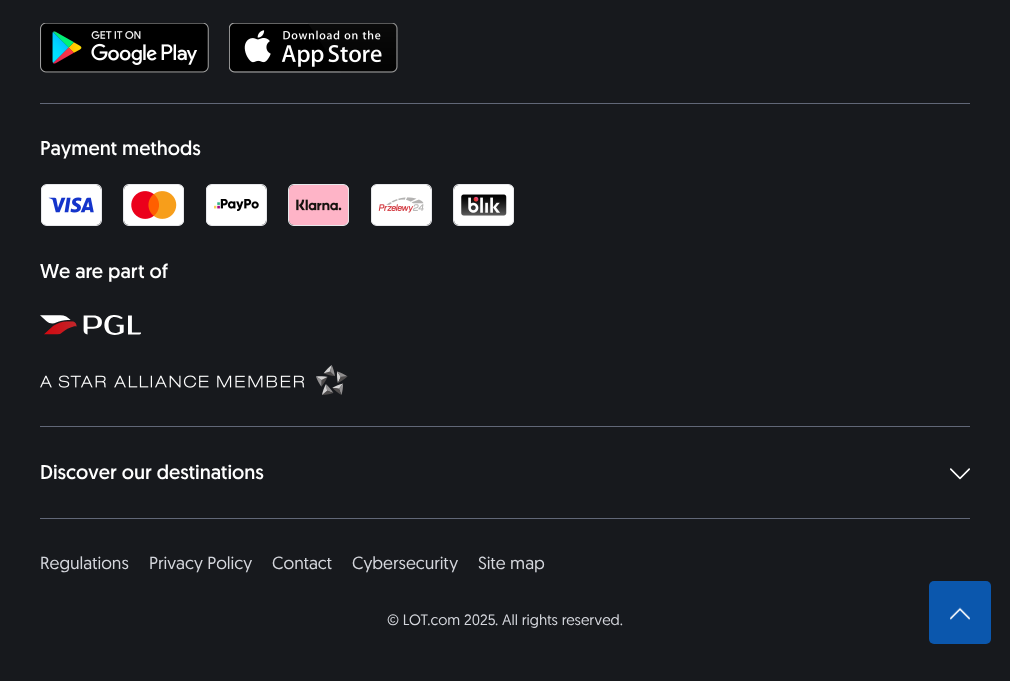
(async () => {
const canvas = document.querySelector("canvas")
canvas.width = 1010
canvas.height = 681
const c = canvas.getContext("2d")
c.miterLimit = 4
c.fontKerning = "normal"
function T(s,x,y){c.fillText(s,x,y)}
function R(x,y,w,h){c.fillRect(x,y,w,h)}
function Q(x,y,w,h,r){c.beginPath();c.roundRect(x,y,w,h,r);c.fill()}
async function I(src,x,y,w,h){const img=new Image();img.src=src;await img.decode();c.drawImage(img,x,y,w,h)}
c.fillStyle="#17191d"
R(0,0,1010,681)
await I("1.png",40,23,169,50)
await I("2.png",229,23,169,50)
c.fillStyle="#616777"
R(40,103,930,1)
c.font="500 20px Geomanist"
c.fillStyle="#fff"
T("Payment methods",40,155)
await I("3.png",41,184,61,42)
await I("4.png",123,184,61,42)
await I("5.png",206,184,61,42)
await I("6.png",288,184,61,42)
await I("7.png",371,184,61,42)
await I("8.png",453,184,61,42)
T("We are part of",40,278)
await I("9.png",40,315,101,20)
await I("10.png",40,365,308,30)
c.fillStyle="#616777"
R(40,426,930,1)
c.fillStyle="#fff"
T("Discover our destinations",40,479)
await I("11.png",950,468,20,12)
c.fillStyle="#616777"
R(40,518,930,1)
c.font="17.5px Geomanist"
c.fillStyle="#d4d6dc"
T("Regulations",40,569)
T("Privacy Policy",149,569)
T("Contact",272,569)
T("Cybersecurity",352,569)
T("Site map",478,569)
c.font="15px Geomanist"
T("© LOT.com 2025. All rights reserved.",387,625)
c.fillStyle="#0b57ad"
Q(929,581,62,63,5)
await I("12.png",950,607,20,13)
})()
